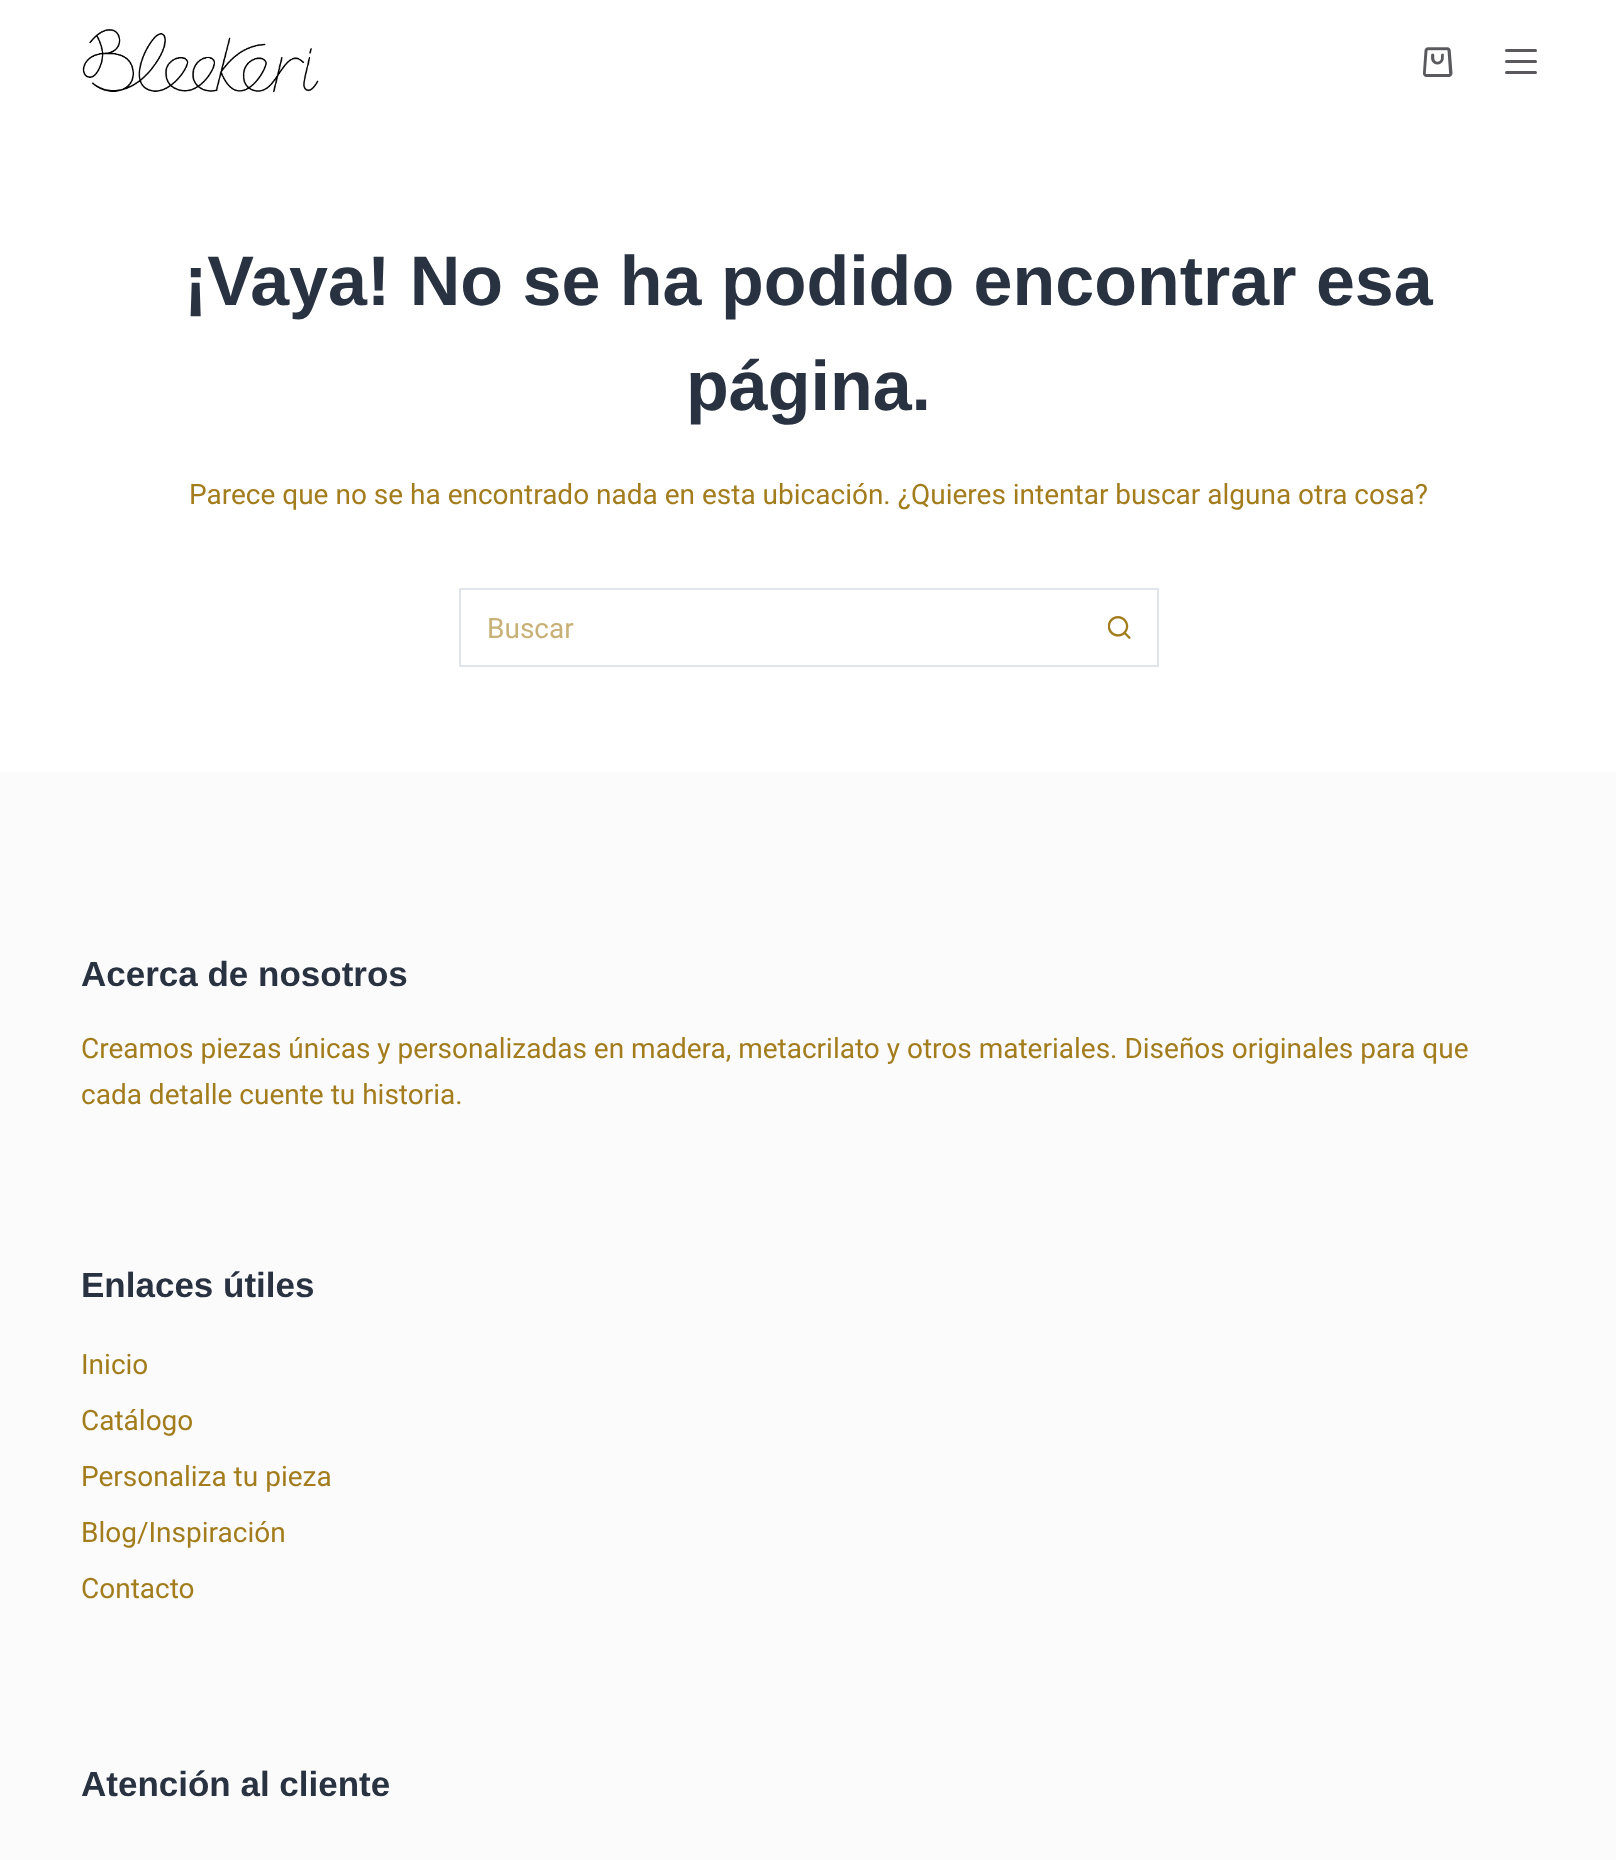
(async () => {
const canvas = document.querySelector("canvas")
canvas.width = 1616
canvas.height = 1860
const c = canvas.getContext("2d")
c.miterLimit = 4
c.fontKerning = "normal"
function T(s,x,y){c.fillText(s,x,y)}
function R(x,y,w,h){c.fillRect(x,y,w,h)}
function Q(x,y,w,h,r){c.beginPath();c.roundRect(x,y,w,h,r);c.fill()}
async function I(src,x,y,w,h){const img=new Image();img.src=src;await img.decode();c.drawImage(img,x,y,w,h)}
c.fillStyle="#fff"
R(0,0,1616,1860)
await I("1.png",82,28,237,65)
await I("2.png",1423,47,30,30)
c.fillStyle="#5a585d"
Q(1505,49,32,3,1.5)
Q(1505,60,32,3,1.5)
Q(1505,71,32,3,1.5)
c.font="bold 70px Liberation Sans"
c.fillStyle="#293241"
T("¡Vaya! No se ha podido encontrar esa",184,305)
T("página.",686,410)
c.font="28px Roboto"
c.fillStyle="#a37d1d"
T("Parece que no se ha encontrado nada en esta ubicación. ¿Quieres intentar buscar alguna otra cosa?",189,504)
c.fillStyle="#e0e5eb"
R(459,588,700,2)
R(459,665,621,2)
R(459,588,2,79)
c.fillStyle="#c8b177"
T("Buscar",487,638)
c.fillStyle="#e0e5eb"
R(1157,588,2,79)
R(1080,665,79,2)
await I("3.png",1108,616,23,23)
c.fillStyle="#fbfbfc"
R(0,772,1616,1088)
c.font="bold 35px Liberation Sans"
c.fillStyle="#293241"
T("Acerca de nosotros",81,986)
c.font="28px Roboto"
c.fillStyle="#a37d1d"
T("Creamos piezas únicas y personalizadas en madera, metacrilato y otros materiales. Diseños originales para que",81,1058)
T("cada detalle cuente tu historia.",81,1104)
c.font="bold 35px Liberation Sans"
c.fillStyle="#293241"
T("Enlaces útiles",81,1297)
c.font="28px Roboto"
c.fillStyle="#a37d1d"
T("Inicio",81,1374)
T("Catálogo",81,1430)
T("Personaliza tu pieza",81,1486)
T("Blog/Inspiración",81,1542)
T("Contacto",81,1598)
c.font="bold 35px Liberation Sans"
c.fillStyle="#293241"
T("Atención al cliente",81,1796)
})()
